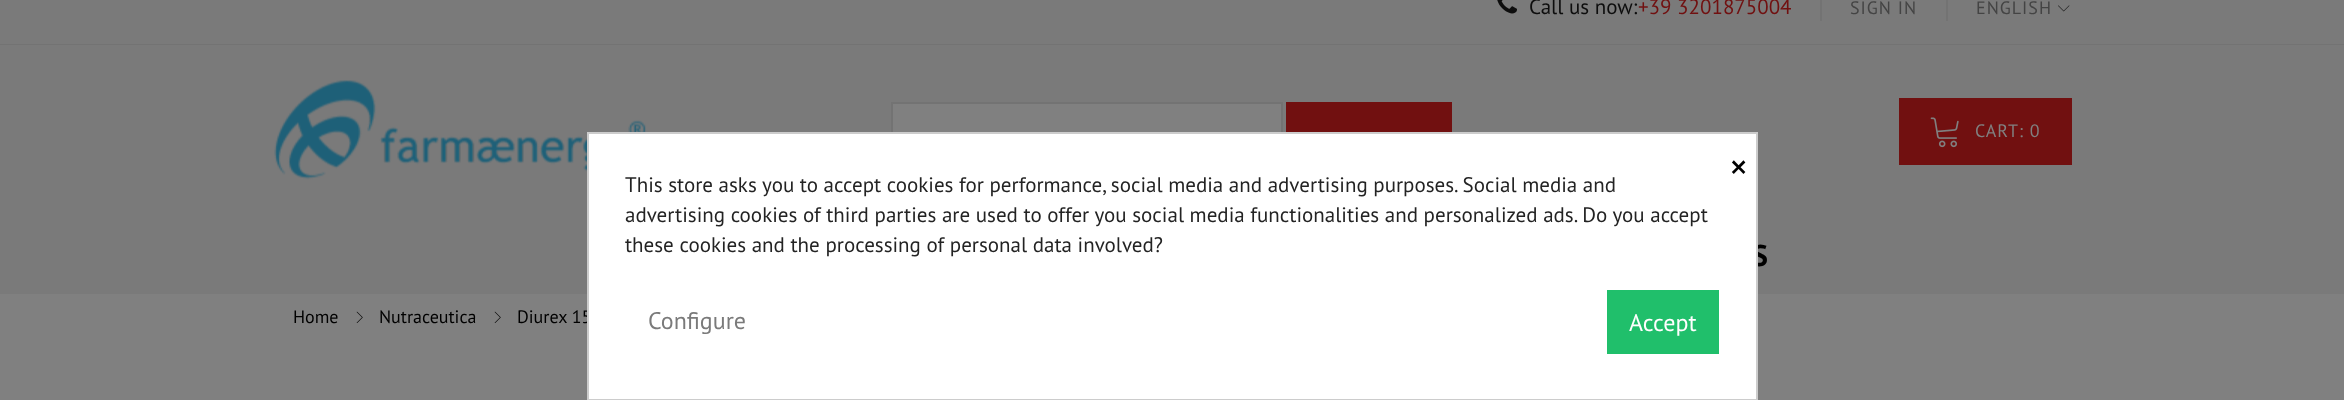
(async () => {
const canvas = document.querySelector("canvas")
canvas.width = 2344
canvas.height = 400
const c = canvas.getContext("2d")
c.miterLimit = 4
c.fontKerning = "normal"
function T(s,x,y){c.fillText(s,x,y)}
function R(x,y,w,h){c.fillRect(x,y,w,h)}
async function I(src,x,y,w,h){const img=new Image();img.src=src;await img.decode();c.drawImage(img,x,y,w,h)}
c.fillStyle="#808080"
R(0,0,2344,400)
c.fillStyle="#7a7a7a"
R(0,0,2344,44)
c.fillStyle="#737373"
R(0,44,2344,1)
await I("1.png",1497,0,20,14)
c.font="21px PT Sans"
c.fillStyle="#0d0d0d"
T("Call us now:",1529,14)
c.fillStyle="#711010"
T("+39 3201875004",1638,14)
c.fillStyle="#737373"
R(1820,0,2,21)
c.letterSpacing="1px"
c.font="18px PT Sans"
c.fillStyle="#444"
T("SIGN IN",1850,14)
c.fillStyle="#737373"
R(1946,0,2,21)
c.fillStyle="#444"
T("ENGLISH",1976,14)
await I("2.png",2058,5,12,7)
c.fillStyle="#7a7a7a"
R(0,45,2344,249)
await I("3.png",274,80,372,100)
c.fillStyle="#808080"
R(893,104,388,28)
c.strokeStyle="#737373"
c.lineWidth=2
c.strokeRect(892,103,390,58)
c.fillStyle="#711010"
R(1286,102,166,30)
R(1899,98,173,67)
await I("4.png",1930,117,29,31)
c.fillStyle="#808080"
T("CART: 0",1975,137)
c.letterSpacing="2px"
c.font="bold 30px PT Sans"
c.fillStyle="#000"
T("S",1752,266)
c.letterSpacing="0px"
c.font="18px PT Sans"
T("Home",293,323)
await I("5.png",356,311,7,12)
T("Nutraceutica",379,323)
await I("5.png",494,311,7,12)
T("Diurex 15",517,323)
c.fillStyle="#fff"
c.beginPath()
c.rect(588,133,1169,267)
c.fill()
c.strokeStyle="#ccc"
c.stroke()
c.font="38px PT Sans"
c.fillStyle="#000"
T("×",1729,180)
c.font="21px PT Sans"
c.fillStyle="#232323"
T("This store asks you to accept cookies for performance, social media and advertising purposes. Social media and",625,192)
T("advertising cookies of third parties are used to offer you social media functionalities and personalized ads. Do you accept",625,222)
T("these cookies and the processing of personal data involved?",625,252)
c.font="24px PT Sans"
c.fillStyle="#7a7a7a"
T("Configure",648,329)
c.fillStyle="#20bf6b"
R(1607,290,112,64)
c.fillStyle="#fff"
T("Accept",1629,331)
})()
